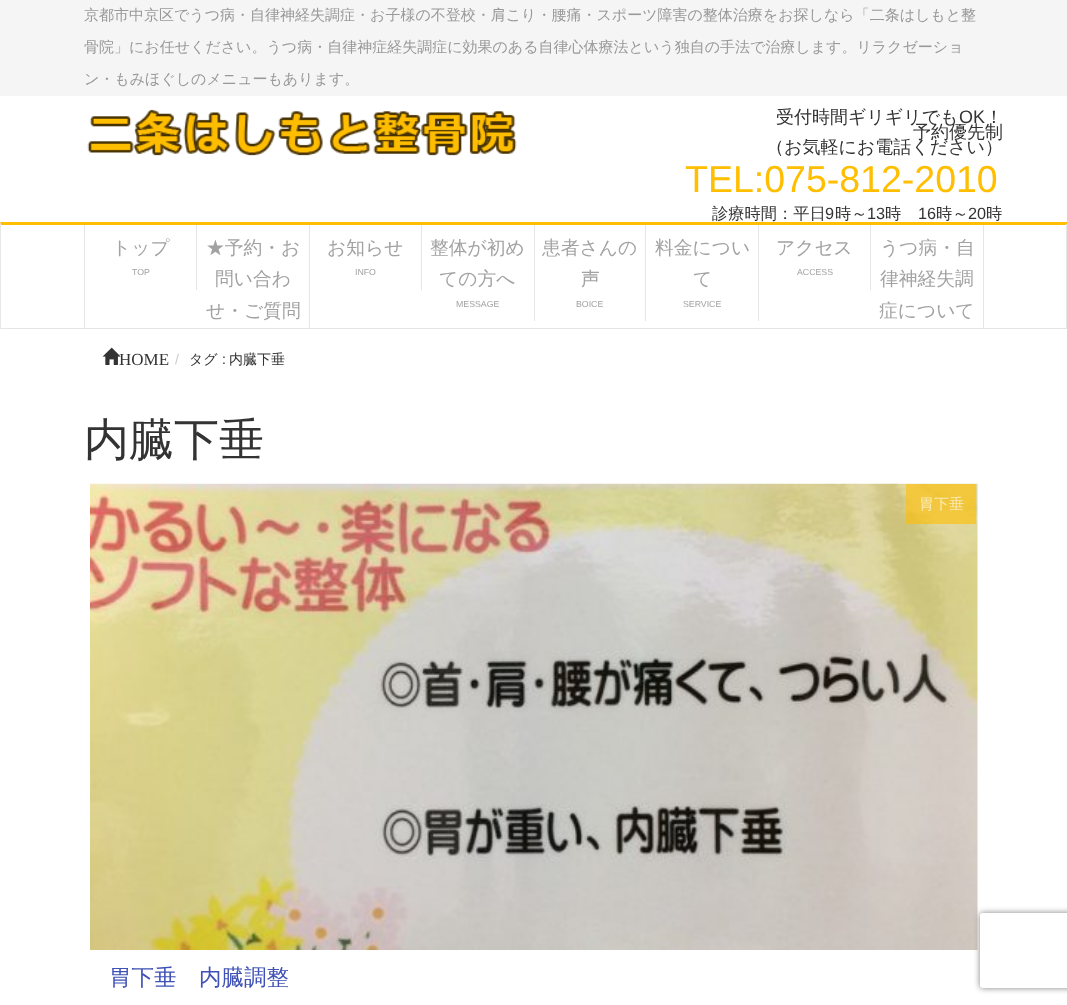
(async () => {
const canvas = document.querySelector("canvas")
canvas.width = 1067
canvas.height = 1005
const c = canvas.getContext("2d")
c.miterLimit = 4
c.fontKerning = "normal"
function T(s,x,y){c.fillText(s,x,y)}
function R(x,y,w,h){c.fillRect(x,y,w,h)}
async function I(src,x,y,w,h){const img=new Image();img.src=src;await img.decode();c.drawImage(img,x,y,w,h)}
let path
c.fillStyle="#fff"
R(0,0,1067,1005)
c.fillStyle="#f5f5f5"
R(0,0,1067,96)
c.font="500 15px WenQuanYi Zen Hei"
c.fillStyle="#999"
T("京都市中京区でうつ病・自律神経失調症・お子様の不登校・肩こり・腰痛・スポーツ障害の整体治療をお探しなら「二条はしもと整",84,20)
T("骨院」にお任せください。うつ病・自律神症経失調症に効果のある自律心体療法という独自の手法で治療します。リラクゼーショ",84,52)
T("ン・もみほぐしのメニューもあります。",84,84)
await I("1.png",87,109,430,47)
c.font="500 18px WenQuanYi Zen Hei"
c.fillStyle="#333"
T("受付時間ギリギリでも",776,123)
c.font="18px Liberation Sans"
T("OK",959,123)
c.font="500 18px WenQuanYi Zen Hei"
T("！",985,123)
T("予約優先制",913,138)
T("（お気軽にお電話ください）",766,153)
c.font="37.5px Liberation Sans"
c.fillStyle="#ffbe00"
T("TEL:075-812-2010",685,192)
c.font="500 16.25px WenQuanYi Zen Hei"
c.fillStyle="#333"
T("診療時間：平日",712,219)
c.font="16.25px Liberation Sans"
T("9",825,219)
c.font="500 16.25px WenQuanYi Zen Hei"
T("時～",835,219)
c.font="16.25px Liberation Sans"
T("13",867,219)
c.font="500 16.25px WenQuanYi Zen Hei"
T("時",885,219)
c.font="16.25px Liberation Sans"
T("16",918,219)
c.font="500 16.25px WenQuanYi Zen Hei"
T("時～",936,219)
c.font="16.25px Liberation Sans"
T("20",968,219)
c.font="500 16.25px WenQuanYi Zen Hei"
T("時",986,219)
c.fillStyle="#ffbe00"
path = new Path2D("M0 222h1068l-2 3h-1065z")
c.fill(path)
c.fillStyle="#e7e7e7"
path = new Path2D("M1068 222v107l-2-1v-103z")
c.fill(path)
c.fillStyle="#0000001a"
path = new Path2D("M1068 329h-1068l1-1h1065z")
c.fill(path)
c.fillStyle="#e7e7e7"
path = new Path2D("M0 329v-107l1 3v103z")
c.fill(path)
c.fillStyle="#e6e6e6"
R(84,225,1,103)
R(196,225,1,65)
c.font="500 18.75px WenQuanYi Zen Hei"
c.fillStyle="#a2a2a2"
T("トップ",112,254)
c.font="8.75px Liberation Sans"
T("TOP",132,275)
c.fillStyle="#e6e6e6"
R(309,225,1,103)
c.font="500 18.75px WenQuanYi Zen Hei"
c.fillStyle="#a2a2a2"
T("★予約・お",206,254)
T("問い合わ",215,285)
T("せ・ご質問",206,317)
c.fillStyle="#e6e6e6"
R(421,225,1,65)
c.fillStyle="#a2a2a2"
T("お知らせ",327,254)
c.font="8.75px Liberation Sans"
T("INFO",355,275)
c.fillStyle="#e6e6e6"
R(534,225,1,96)
c.font="500 18.75px WenQuanYi Zen Hei"
c.fillStyle="#a2a2a2"
T("整体が初め",430,254)
T("ての方へ",439,285)
c.font="8.75px Liberation Sans"
T("MESSAGE",456,307)
c.fillStyle="#e6e6e6"
R(645,225,1,96)
c.font="500 18.75px WenQuanYi Zen Hei"
c.fillStyle="#a2a2a2"
T("患者さんの",542,254)
T("声",581,285)
c.font="8.75px Liberation Sans"
T("BOICE",576,307)
c.fillStyle="#e6e6e6"
R(758,225,1,96)
c.font="500 18.75px WenQuanYi Zen Hei"
c.fillStyle="#a2a2a2"
T("料金につい",655,254)
T("て",693,285)
c.font="8.75px Liberation Sans"
T("SERVICE",683,307)
c.fillStyle="#e6e6e6"
R(870,225,1,65)
c.font="500 18.75px WenQuanYi Zen Hei"
c.fillStyle="#a2a2a2"
T("アクセス",776,254)
c.font="8.75px Liberation Sans"
T("ACCESS",797,275)
c.fillStyle="#e6e6e6"
R(983,225,1,103)
c.font="500 18.75px WenQuanYi Zen Hei"
c.fillStyle="#a2a2a2"
T("うつ病・自",880,254)
T("律神経失調",880,285)
T("症について",879,317)
await I("2.png",102,347,19,18)
c.font="17px Liberation Serif"
c.fillStyle="#333"
T("HOME",119,365)
c.font="14px Liberation Sans"
c.fillStyle="#ccc"
T("/",175,364)
c.font="500 14px WenQuanYi Zen Hei"
c.fillStyle="#333"
T("タグ",189,364)
c.font="14px Liberation Sans"
T(":",222,364)
c.font="500 14px WenQuanYi Zen Hei"
T("内臓下垂",229,364)
c.font="500 45px WenQuanYi Zen Hei"
T("内臓下垂",84,455)
await I("3.png",90,483,888,467)
c.fillStyle="#ffbe0099"
R(906,484,70,40)
c.font="500 15px WenQuanYi Zen Hei"
c.fillStyle="#fae9b1"
T("胃下垂",919,509)
c.font="500 22.5px WenQuanYi Zen Hei"
c.fillStyle="#3f51b5"
T("胃下垂　内臓調整",109,985)
c.save()
path = new Path2D("M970 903h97v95h-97zm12.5 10h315c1.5 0 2.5 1 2.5 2.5v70c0 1.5-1 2.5-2.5 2.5h-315c-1.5 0-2.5-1-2.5-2.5v-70c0-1.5 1-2.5 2.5-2.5z")
c.clip(path,"evenodd")
c.fillStyle="#808080"
c.filter="blur(3px)"
c.beginPath()
c.roundRect(980,913,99,75,2.5)
c.fill()
c.filter="none"
c.restore()
})()
